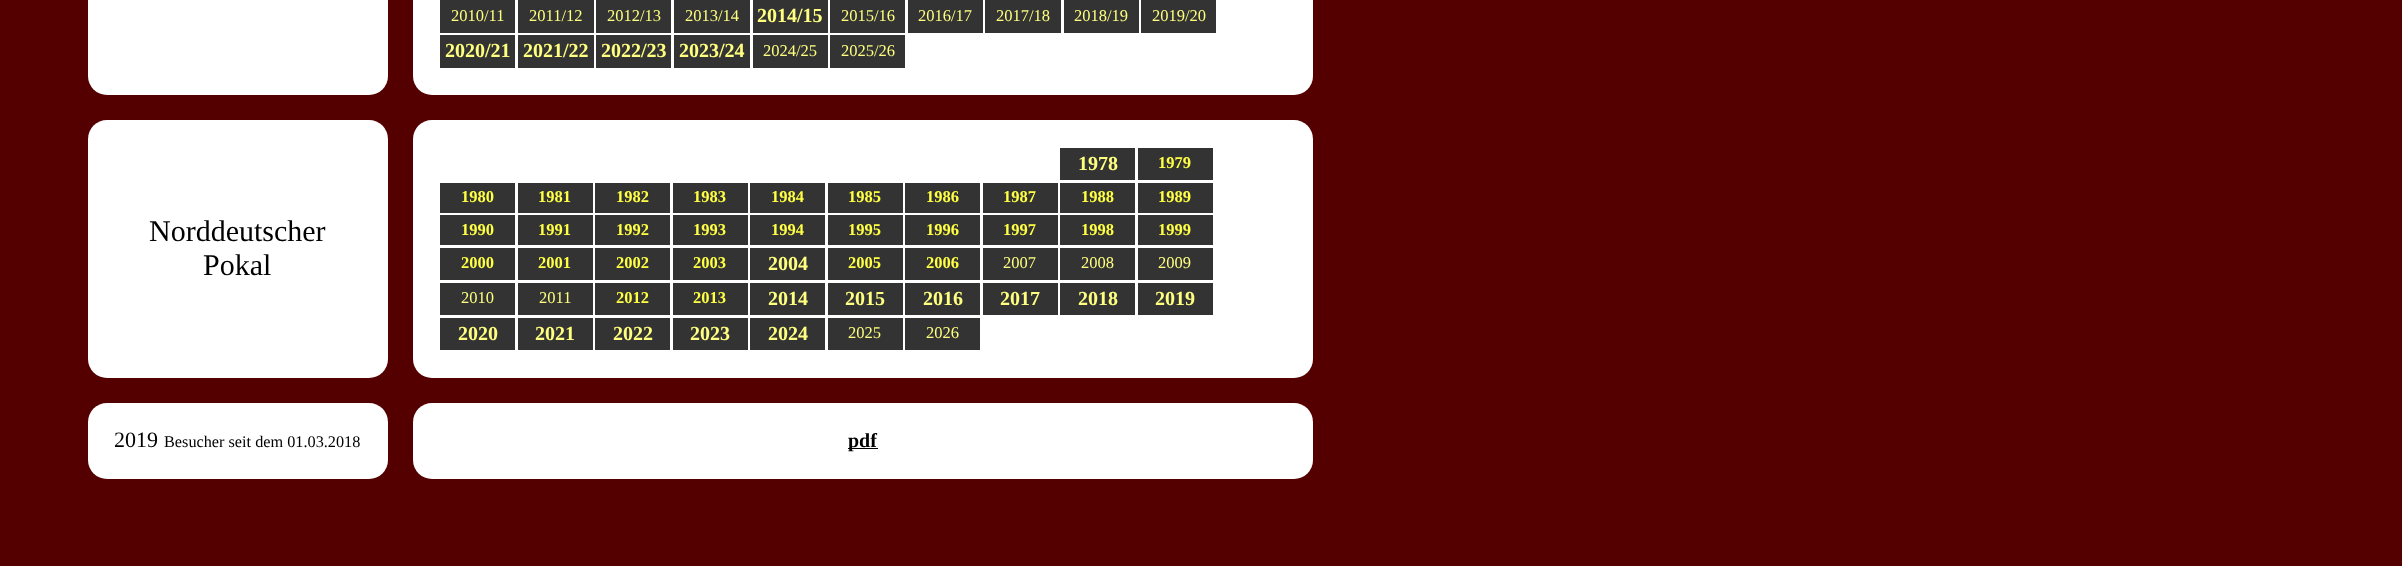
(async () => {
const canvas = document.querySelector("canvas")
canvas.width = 2402
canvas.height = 566
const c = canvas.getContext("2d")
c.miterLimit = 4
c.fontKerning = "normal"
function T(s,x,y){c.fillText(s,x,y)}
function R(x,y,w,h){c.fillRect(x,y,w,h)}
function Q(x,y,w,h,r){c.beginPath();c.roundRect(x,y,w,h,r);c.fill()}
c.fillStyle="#500"
R(0,0,2402,566)
c.fillStyle="#fff"
Q(88,-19,300,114,19)
Q(413,-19,900,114,19)
c.fillStyle="#333"
R(440,0,75,33)
c.font="16.5px Liberation Serif"
c.fillStyle="#ffff80"
T("2010/11",451,21)
c.fillStyle="#333"
R(518,0,76,33)
c.fillStyle="#ffff80"
T("2011/12",529,21)
c.fillStyle="#333"
R(596,0,75,33)
c.fillStyle="#ffff80"
T("2012/13",607,21)
c.fillStyle="#333"
R(674,0,76,33)
c.fillStyle="#ffff80"
T("2013/14",685,21)
c.fillStyle="#333"
R(753,0,75,33)
c.font="bold 20px Liberation Serif"
c.fillStyle="#ffff80"
T("2014/15",757,22)
c.fillStyle="#333"
R(830,0,75,33)
c.font="16.5px Liberation Serif"
c.fillStyle="#ffff80"
T("2015/16",841,21)
c.fillStyle="#333"
R(908,0,75,33)
c.fillStyle="#ffff80"
T("2016/17",918,21)
c.fillStyle="#333"
R(985,0,76,33)
c.fillStyle="#ffff80"
T("2017/18",996,21)
c.fillStyle="#333"
R(1064,0,75,33)
c.fillStyle="#ffff80"
T("2018/19",1074,21)
c.fillStyle="#333"
R(1141,0,75,33)
c.fillStyle="#ffff80"
T("2019/20",1152,21)
c.fillStyle="#333"
R(440,35,75,33)
c.font="bold 20px Liberation Serif"
c.fillStyle="#ffff80"
T("2020/21",445,57)
c.fillStyle="#333"
R(518,35,76,33)
c.fillStyle="#ffff80"
T("2021/22",523,57)
c.fillStyle="#333"
R(596,35,75,33)
c.fillStyle="#ffff80"
T("2022/23",601,57)
c.fillStyle="#333"
R(674,35,76,33)
c.fillStyle="#ffff80"
T("2023/24",679,57)
c.fillStyle="#333"
R(753,35,75,33)
c.font="16.5px Liberation Serif"
c.fillStyle="#ffff80"
T("2024/25",763,56)
c.fillStyle="#333"
R(830,35,75,33)
c.fillStyle="#ffff80"
T("2025/26",841,56)
c.fillStyle="#fff"
Q(88,120,300,258,19)
c.font="30px Liberation Serif"
c.fillStyle="#000"
T("Norddeutscher",149,241)
T("Pokal",203,275)
c.fillStyle="#fff"
Q(413,120,900,258,19)
c.fillStyle="#333"
R(1060,148,75,32)
c.font="bold 20px Liberation Serif"
c.fillStyle="#ffff80"
T("1978",1078,170)
c.fillStyle="#333"
R(1138,148,75,32)
c.font="bold 16.5px Liberation Serif"
c.fillStyle="#ff4"
T("1979",1158,168)
c.fillStyle="#333"
R(440,183,75,30)
c.fillStyle="#ff4"
T("1980",461,202)
c.fillStyle="#333"
R(518,183,75,30)
c.fillStyle="#ff4"
T("1981",538,202)
c.fillStyle="#333"
R(595,183,75,30)
c.fillStyle="#ff4"
T("1982",616,202)
c.fillStyle="#333"
R(673,183,75,30)
c.fillStyle="#ff4"
T("1983",693,202)
c.fillStyle="#333"
R(750,183,75,30)
c.fillStyle="#ff4"
T("1984",771,202)
c.fillStyle="#333"
R(828,183,75,30)
c.fillStyle="#ff4"
T("1985",848,202)
c.fillStyle="#333"
R(905,183,75,30)
c.fillStyle="#ff4"
T("1986",926,202)
c.fillStyle="#333"
R(983,183,75,30)
c.fillStyle="#ff4"
T("1987",1003,202)
c.fillStyle="#333"
R(1060,183,75,30)
c.fillStyle="#ff4"
T("1988",1081,202)
c.fillStyle="#333"
R(1138,183,75,30)
c.fillStyle="#ff4"
T("1989",1158,202)
c.fillStyle="#333"
R(440,215,75,30)
c.fillStyle="#ff4"
T("1990",461,235)
c.fillStyle="#333"
R(518,215,75,30)
c.fillStyle="#ff4"
T("1991",538,235)
c.fillStyle="#333"
R(595,215,75,30)
c.fillStyle="#ff4"
T("1992",616,235)
c.fillStyle="#333"
R(673,215,75,30)
c.fillStyle="#ff4"
T("1993",693,235)
c.fillStyle="#333"
R(750,215,75,30)
c.fillStyle="#ff4"
T("1994",771,235)
c.fillStyle="#333"
R(828,215,75,30)
c.fillStyle="#ff4"
T("1995",848,235)
c.fillStyle="#333"
R(905,215,75,30)
c.fillStyle="#ff4"
T("1996",926,235)
c.fillStyle="#333"
R(983,215,75,30)
c.fillStyle="#ff4"
T("1997",1003,235)
c.fillStyle="#333"
R(1060,215,75,30)
c.fillStyle="#ff4"
T("1998",1081,235)
c.fillStyle="#333"
R(1138,215,75,30)
c.fillStyle="#ff4"
T("1999",1158,235)
c.fillStyle="#333"
R(440,248,75,32)
c.fillStyle="#ff4"
T("2000",461,268)
c.fillStyle="#333"
R(518,248,75,32)
c.fillStyle="#ff4"
T("2001",538,268)
c.fillStyle="#333"
R(595,248,75,32)
c.fillStyle="#ff4"
T("2002",616,268)
c.fillStyle="#333"
R(673,248,75,32)
c.fillStyle="#ff4"
T("2003",693,268)
c.fillStyle="#333"
R(750,248,75,32)
c.font="bold 20px Liberation Serif"
c.fillStyle="#ffff80"
T("2004",768,270)
c.fillStyle="#333"
R(828,248,75,32)
c.font="bold 16.5px Liberation Serif"
c.fillStyle="#ff4"
T("2005",848,268)
c.fillStyle="#333"
R(905,248,75,32)
c.fillStyle="#ff4"
T("2006",926,268)
c.fillStyle="#333"
R(983,248,75,32)
c.font="16.5px Liberation Serif"
c.fillStyle="#ffff80"
T("2007",1003,268)
c.fillStyle="#333"
R(1060,248,75,32)
c.fillStyle="#ffff80"
T("2008",1081,268)
c.fillStyle="#333"
R(1138,248,75,32)
c.fillStyle="#ffff80"
T("2009",1158,268)
c.fillStyle="#333"
R(440,283,75,32)
c.fillStyle="#ffff80"
T("2010",461,303)
c.fillStyle="#333"
R(518,283,75,32)
c.fillStyle="#ffff80"
T("2011",539,303)
c.fillStyle="#333"
R(595,283,75,32)
c.font="bold 16.5px Liberation Serif"
c.fillStyle="#ff4"
T("2012",616,303)
c.fillStyle="#333"
R(673,283,75,32)
c.fillStyle="#ff4"
T("2013",693,303)
c.fillStyle="#333"
R(750,283,75,32)
c.font="bold 20px Liberation Serif"
c.fillStyle="#ffff80"
T("2014",768,305)
c.fillStyle="#333"
R(828,283,75,32)
c.fillStyle="#ffff80"
T("2015",845,305)
c.fillStyle="#333"
R(905,283,75,32)
c.fillStyle="#ffff80"
T("2016",923,305)
c.fillStyle="#333"
R(983,283,75,32)
c.fillStyle="#ffff80"
T("2017",1000,305)
c.fillStyle="#333"
R(1060,283,75,32)
c.fillStyle="#ffff80"
T("2018",1078,305)
c.fillStyle="#333"
R(1138,283,75,32)
c.fillStyle="#ffff80"
T("2019",1155,305)
c.fillStyle="#333"
R(440,318,75,32)
c.fillStyle="#ffff80"
T("2020",458,340)
c.fillStyle="#333"
R(518,318,75,32)
c.fillStyle="#ffff80"
T("2021",535,340)
c.fillStyle="#333"
R(595,318,75,32)
c.fillStyle="#ffff80"
T("2022",613,340)
c.fillStyle="#333"
R(673,318,75,32)
c.fillStyle="#ffff80"
T("2023",690,340)
c.fillStyle="#333"
R(750,318,75,32)
c.fillStyle="#ffff80"
T("2024",768,340)
c.fillStyle="#333"
R(828,318,75,32)
c.font="16.5px Liberation Serif"
c.fillStyle="#ffff80"
T("2025",848,338)
c.fillStyle="#333"
R(905,318,75,32)
c.fillStyle="#ffff80"
T("2026",926,338)
c.fillStyle="#fff"
Q(88,403,300,76,19)
c.font="22px Liberation Serif"
c.fillStyle="#000"
T("2019",114,447)
c.font="16.25px Liberation Serif"
T("Besucher seit dem 01.03.2018",164,447)
c.fillStyle="#fff"
Q(413,403,900,76,19)
c.fillStyle="#000"
R(848,448,30,1)
c.font="bold 20px Liberation Serif"
T("pdf",848,447)
})()
